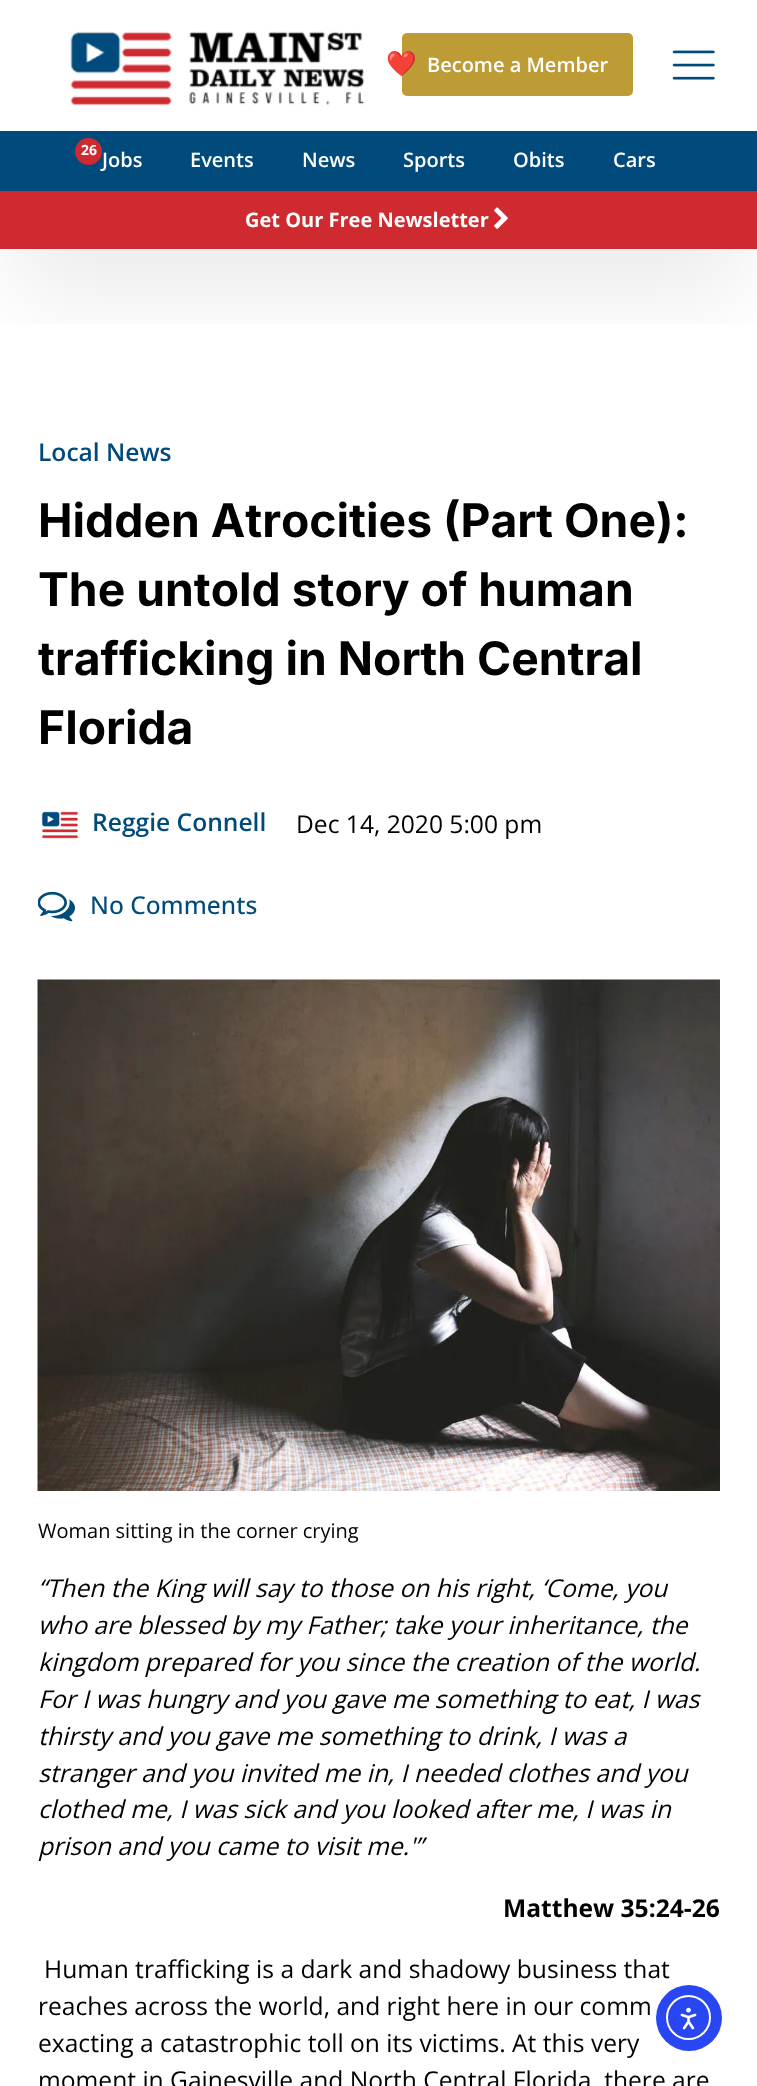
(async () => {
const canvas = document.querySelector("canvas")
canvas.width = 757
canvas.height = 2086
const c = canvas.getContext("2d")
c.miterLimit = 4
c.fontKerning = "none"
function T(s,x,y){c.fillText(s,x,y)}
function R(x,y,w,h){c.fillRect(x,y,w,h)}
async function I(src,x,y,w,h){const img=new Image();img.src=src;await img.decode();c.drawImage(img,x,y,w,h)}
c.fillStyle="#fff"
R(0,0,757,2086)
c.save()
c.beginPath()
c.rect(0,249,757,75)
c.clip()
c.fillStyle="#00000014"
c.filter="blur(45px)"
c.beginPath()
c.rect(15,75,728,219)
c.fill()
c.filter="none"
c.restore()
await I("1.png",70,31,295,75)
c.fillStyle="#bd9b35"
c.beginPath()
c.roundRect(403,34,229,61,4)
c.fill()
c.strokeStyle="#bd9b35"
c.lineWidth=2
c.stroke()
c.font="24.6px Noto Color Emoji"
c.fillStyle="#e1d2a4"
T("❤",386,72)
c.font="600 20px Open Sans"
c.fillStyle="#fff"
T("Become a Member",427,72)
await I("2.png",672,50,43,30)
c.fillStyle="#004b7c"
R(0,131,757,60)
c.fillStyle="#fff"
T("Jobs",102,167)
c.fillStyle="#ce2a30"
c.beginPath()
c.arc(88.5,151.5,13.5,0,7)
c.fill()
c.font="bold 14px Open Sans"
c.fillStyle="#fff"
T("26",81,155)
c.font="600 20px Open Sans"
T("Events",190,167)
T("News",302,167)
T("Sports",403,167)
T("Obits",513,167)
T("Cars",613,167)
c.fillStyle="#ce2a30"
R(0,191,757,58)
c.font="bold 20px Open Sans"
c.fillStyle="#fff"
T("Get Our Free Newsletter",245,227)
await I("3.png",494,207,14,22)
c.font="600 24.6px Open Sans"
c.fillStyle="#004b7c"
T("Local News",38,461)
c.font="bold 46.25px Inter"
c.fillStyle="#000"
T("Hidden Atrocities (Part One):",38,537)
T("The untold story of human",38,606)
T("trafficking in North Central",38,675)
T("Florida",38,744)
await I("4.png",41,811,38,28)
c.font="600 24.6px Open Sans"
c.fillStyle="#004b7c"
T("Reggie Connell",92,831)
c.font="24.6px Open Sans"
c.fillStyle="#000"
T("Dec 14, 2020 5:00 pm",296,833)
await I("5.png",38,891,37,31)
c.font="500 24.6px Open Sans"
c.fillStyle="#004b7c"
T("No Comments",90,914)
await I("6.png",37,979,683,512)
c.font="20px Open Sans"
c.fillStyle="#000"
T("Woman sitting in the corner crying",38,1538)
c.font="italic 24.6px Open Sans"
T("“Then the King will say to those on his right, ‘Come, you",38,1597)
T("who are blessed by my Father; take your inheritance, the",38,1634)
T("kingdom prepared for you since the creation of the world.",38,1671)
T("For I was hungry and you gave me something to eat, I was",38,1708)
T("thirsty and you gave me something to drink, I was a",38,1745)
T("stranger and you invited me in, I needed clothes and you",38,1782)
T("clothed me, I was sick and you looked after me, I was in",38,1818)
T("prison and you came to visit me.'”",38,1855)
c.font="bold 24.6px Open Sans"
T("Matthew 35:24-26",503,1917)
c.font="24.6px Open Sans"
T("Human trafficking is a dark and shadowy business that",44,1978)
T("reaches across the world, and right here in our comm",38,2015)
T("exacting a catastrophic toll on its victims. At this very",38,2052)
T("moment in Gainesville and North Central Florida, there are",38,2089)
c.fillStyle="#2847f3"
c.beginPath()
c.arc(689,2018,33,0,7)
c.fill()
c.beginPath()
c.arc(688.5,2017.5,21.5,0,7)
c.strokeStyle="#fff"
c.stroke()
await I("7.png",680,2007,17,23)
})()
